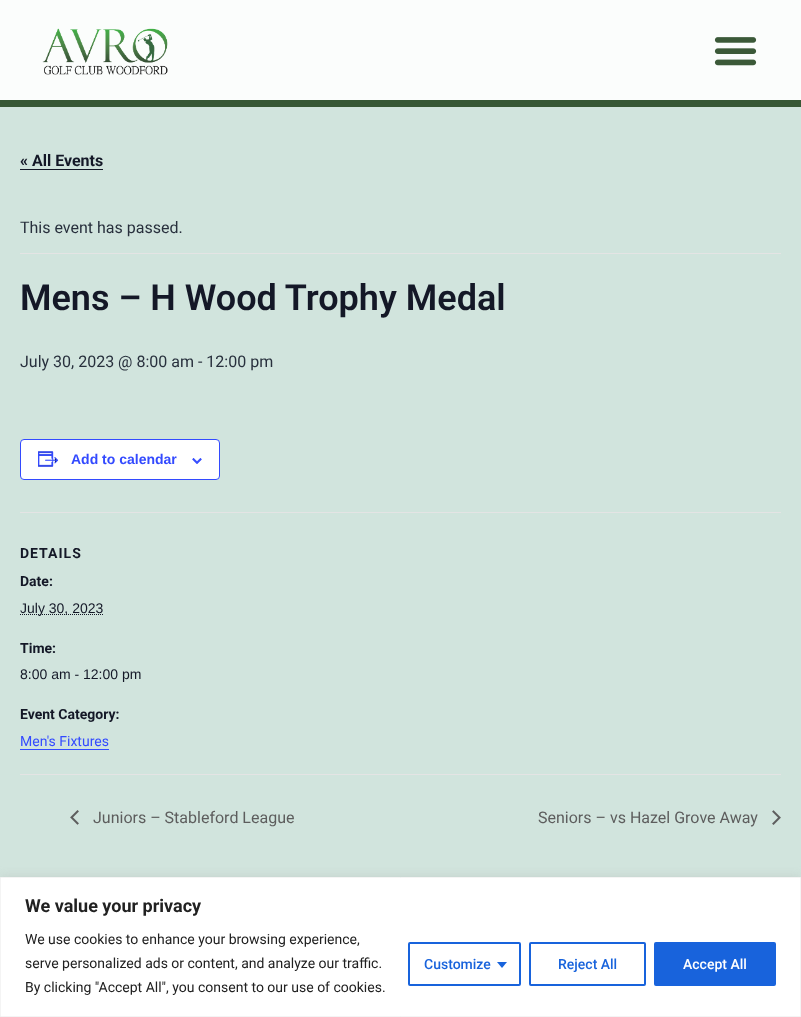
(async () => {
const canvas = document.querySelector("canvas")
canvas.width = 801
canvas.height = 1017
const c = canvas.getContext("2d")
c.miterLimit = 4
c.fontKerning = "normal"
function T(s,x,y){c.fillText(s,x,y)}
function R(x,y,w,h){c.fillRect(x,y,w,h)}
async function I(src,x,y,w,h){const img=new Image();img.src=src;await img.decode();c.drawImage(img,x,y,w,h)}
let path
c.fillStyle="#d1e4dd"
R(0,0,801,1017)
c.fillStyle="#fbfdfc"
R(0,0,801,100)
c.fillStyle="#375735"
R(0,100,801,7)
await I("1.png",42,28,126,47)
await I("2.png",714,37,43,29)
c.font="bold 16px Roboto"
c.fillStyle="#141827"
T("« All Events",20,166)
R(20,169,83,1)
c.fillStyle="#e4e4e4"
R(20,253,761,1)
c.font="16px Roboto"
c.fillStyle="#28303d"
T("This event has passed.",20,233)
c.font="600 36px Roboto"
c.fillStyle="#141827"
T("Mens – H Wood Trophy Medal",20,310)
c.font="16px Roboto"
c.fillStyle="#28303d"
T("July 30, 2023 @ 8:00 am - 12:00 pm",20,367)
c.fillStyle="#fff"
c.beginPath()
c.roundRect(20.5,439.5,199,40,3.5)
c.fill()
c.strokeStyle="#334aff"
c.stroke()
await I("3.png",38,451,21,16)
c.font="bold 14px Liberation Sans"
c.fillStyle="#334aff"
T("Add to calendar",71,464)
await I("4.png",192,458,10,6)
c.fillStyle="#e4e4e4"
R(20,512,761,1)
c.letterSpacing="1px"
c.font="bold 14px Roboto"
c.fillStyle="#141827"
T("DETAILS",20,558)
c.letterSpacing="0px"
T("Date:",20,586)
path = new Path2D("M20 614.5h83.5")
c.strokeStyle="#141827"
c.setLineDash([1,1])
c.stroke(path)
c.font="14px Liberation Sans"
T("July 30, 2023",20,613)
c.font="bold 14px Roboto"
T("Time:",20,653)
c.font="14px Liberation Sans"
T("8:00 am - 12:00 pm",20,679)
c.font="bold 14px Roboto"
T("Event Category:",20,719)
c.font="14px Roboto"
c.fillStyle="#334aff"
T("Men's Fixtures",20,746)
R(20,749,89,1)
c.fillStyle="#e4e4e4"
R(20,774,761,1)
await I("5.png",70,810,9,15)
c.font="16px Roboto"
c.fillStyle="#5d5d5d"
T("Juniors – Stableford League",93,823)
T("Seniors – vs Hazel Grove Away",538,823)
await I("6.png",772,810,9,15)
c.fillStyle="#acabab4d"
c.filter="blur(5px)"
c.beginPath()
c.rect(0,876,801,140)
c.fill()
c.filter="none"
c.fillStyle="#fff"
c.beginPath()
c.rect(.5,877.5,800,139)
c.fill()
c.strokeStyle="#f4f4f4"
c.setLineDash([])
c.stroke()
c.font="bold 18px Roboto"
c.fillStyle="#212121"
T("We value your privacy",25,912)
c.font="14px Roboto"
T("We use cookies to enhance your browsing experience,",25,944)
T("serve personalized ads or content, and analyze our traffic.",25,968)
T("By clicking \"Accept All\", you consent to our use of cookies.",25,992)
c.beginPath()
c.roundRect(409,943,111,42,1)
c.strokeStyle="#1863dc"
c.lineWidth=2
c.stroke()
c.font="500 14px Roboto"
c.fillStyle="#1863dc"
T("Customize",424,969)
path = new Path2D("M497 962h10l-5 6z")
c.fill(path)
c.beginPath()
c.roundRect(530,943,115,42,1)
c.stroke()
T("Reject All",558,969)
c.beginPath()
c.roundRect(655,943,120,42,1)
c.fill()
c.stroke()
c.fillStyle="#fff"
T("Accept All",683,969)
})()
